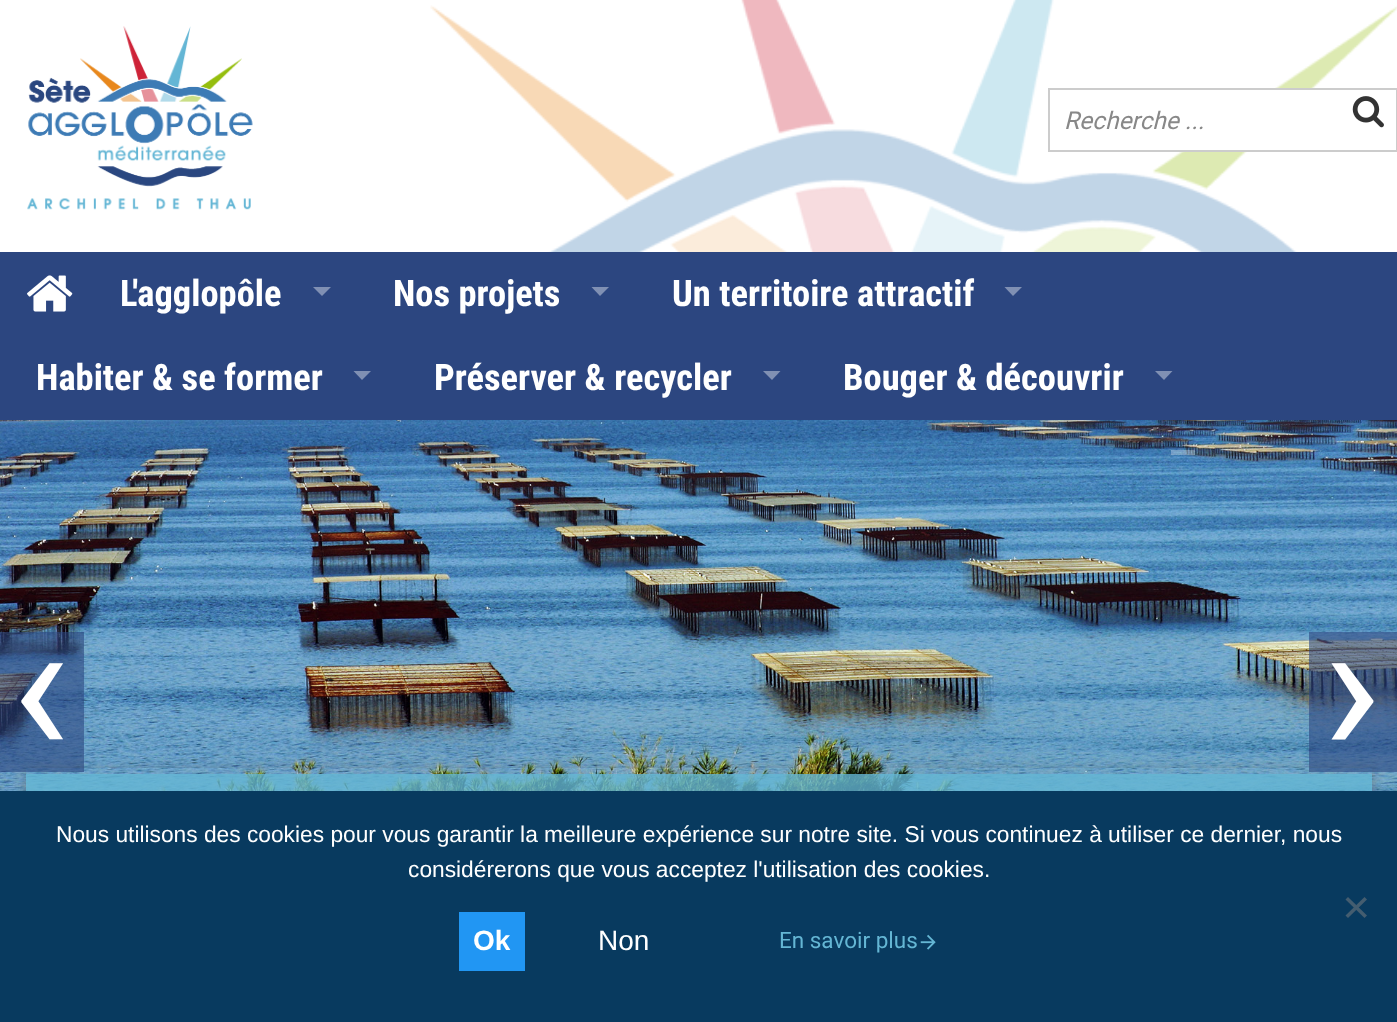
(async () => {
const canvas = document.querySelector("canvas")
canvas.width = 1397
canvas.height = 1022
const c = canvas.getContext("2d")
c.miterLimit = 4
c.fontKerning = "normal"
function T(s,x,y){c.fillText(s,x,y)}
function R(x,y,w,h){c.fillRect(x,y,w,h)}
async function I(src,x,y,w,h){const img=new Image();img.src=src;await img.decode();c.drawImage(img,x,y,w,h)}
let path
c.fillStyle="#fff"
R(0,0,1397,1022)
await I("1.png",27,26,226,184)
await I("2.png",430,0,967,252)
R(1183,90,129,60)
c.strokeStyle="#ccc"
c.lineWidth=2
c.strokeRect(1049,89,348,62)
c.font="italic 24.5px Roboto"
c.fillStyle="#888"
T("Recherche ...",1064,129)
await I("3.png",1352,96,32,32)
c.fillStyle="#2c4680"
R(0,252,1397,168)
await I("4.png",27,275,46,37)
c.font="bold 36.5px Roboto Condensed"
c.fillStyle="#fff"
T("L'agglopôle",120,306)
c.fillStyle="#8090b3"
path = new Path2D("M313 287h18l-9 9z")
c.fill(path)
c.fillStyle="#fff"
T("Nos projets",393,306)
c.fillStyle="#8090b3"
path = new Path2D("M591.5 287h17.5l-9 9z")
c.fill(path)
c.fillStyle="#fff"
T("Un territoire attractif",672,306)
c.fillStyle="#8090b3"
path = new Path2D("M1004.5 287h17.5l-9 9z")
c.fill(path)
c.fillStyle="#fff"
T("Habiter & se former",36,390)
c.fillStyle="#8090b3"
path = new Path2D("M353.5 371h17.5l-9 9z")
c.fill(path)
c.fillStyle="#fff"
T("Préserver & recycler",434,390)
c.fillStyle="#8090b3"
path = new Path2D("M763 371h17.5l-8.5 9z")
c.fill(path)
c.fillStyle="#fff"
T("Bouger & découvrir",843,390)
c.fillStyle="#8090b3"
path = new Path2D("M1155 371h17.5l-8.5 9z")
c.fill(path)
await I("5.png",0,420,1397,371)
c.fillStyle="#ffffff4d"
R(1171,450,24,5)
c.fillStyle="#2c468099"
R(0,632,84,140)
c.font="196px Roboto"
c.fillStyle="#fff"
T("‹",11,754)
c.fillStyle="#2c468099"
R(1309,632,88,140)
c.fillStyle="#fff"
T("›",1323,754)
c.save()
path = new Path2D("M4 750h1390v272h-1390zm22 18h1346v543h-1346z")
c.clip(path,"evenodd")
c.fillStyle="#50505080"
c.filter="blur(7px)"
c.beginPath()
c.rect(26,772,1346,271)
c.fill()
c.filter="none"
c.restore()
c.fillStyle="#64b6d4cc"
R(26,774,1346,17)
c.fillStyle="#083a5f"
R(0,791,1397,231)
c.font="22.75px Liberation Sans"
c.fillStyle="#fff"
T("Nous utilisons des cookies pour vous garantir la meilleure expérience sur notre site. Si vous continuez à utiliser ce dernier, nous",56,842)
T("considérerons que vous acceptez l'utilisation des cookies.",408,877)
c.fillStyle="#445d70"
path = new Path2D("M1364.5 897l2.5 2.5l-19 18.5l-2.5-2.5z")
c.fill(path)
path = new Path2D("M1345.5 899.5l2.5-2.5l19 18.5l-2.5 2.5z")
c.fill(path)
c.fillStyle="#2196f3"
R(459,912,66,59)
c.font="bold 28px Liberation Sans"
c.fillStyle="#fff"
T("Ok",473,950)
c.font="28px Liberation Sans"
T("Non",598,950)
c.font="22.5px Roboto"
c.fillStyle="#64b6d4"
T("En savoir plus",779,948)
await I("6.png",920,934,16,16)
})()
